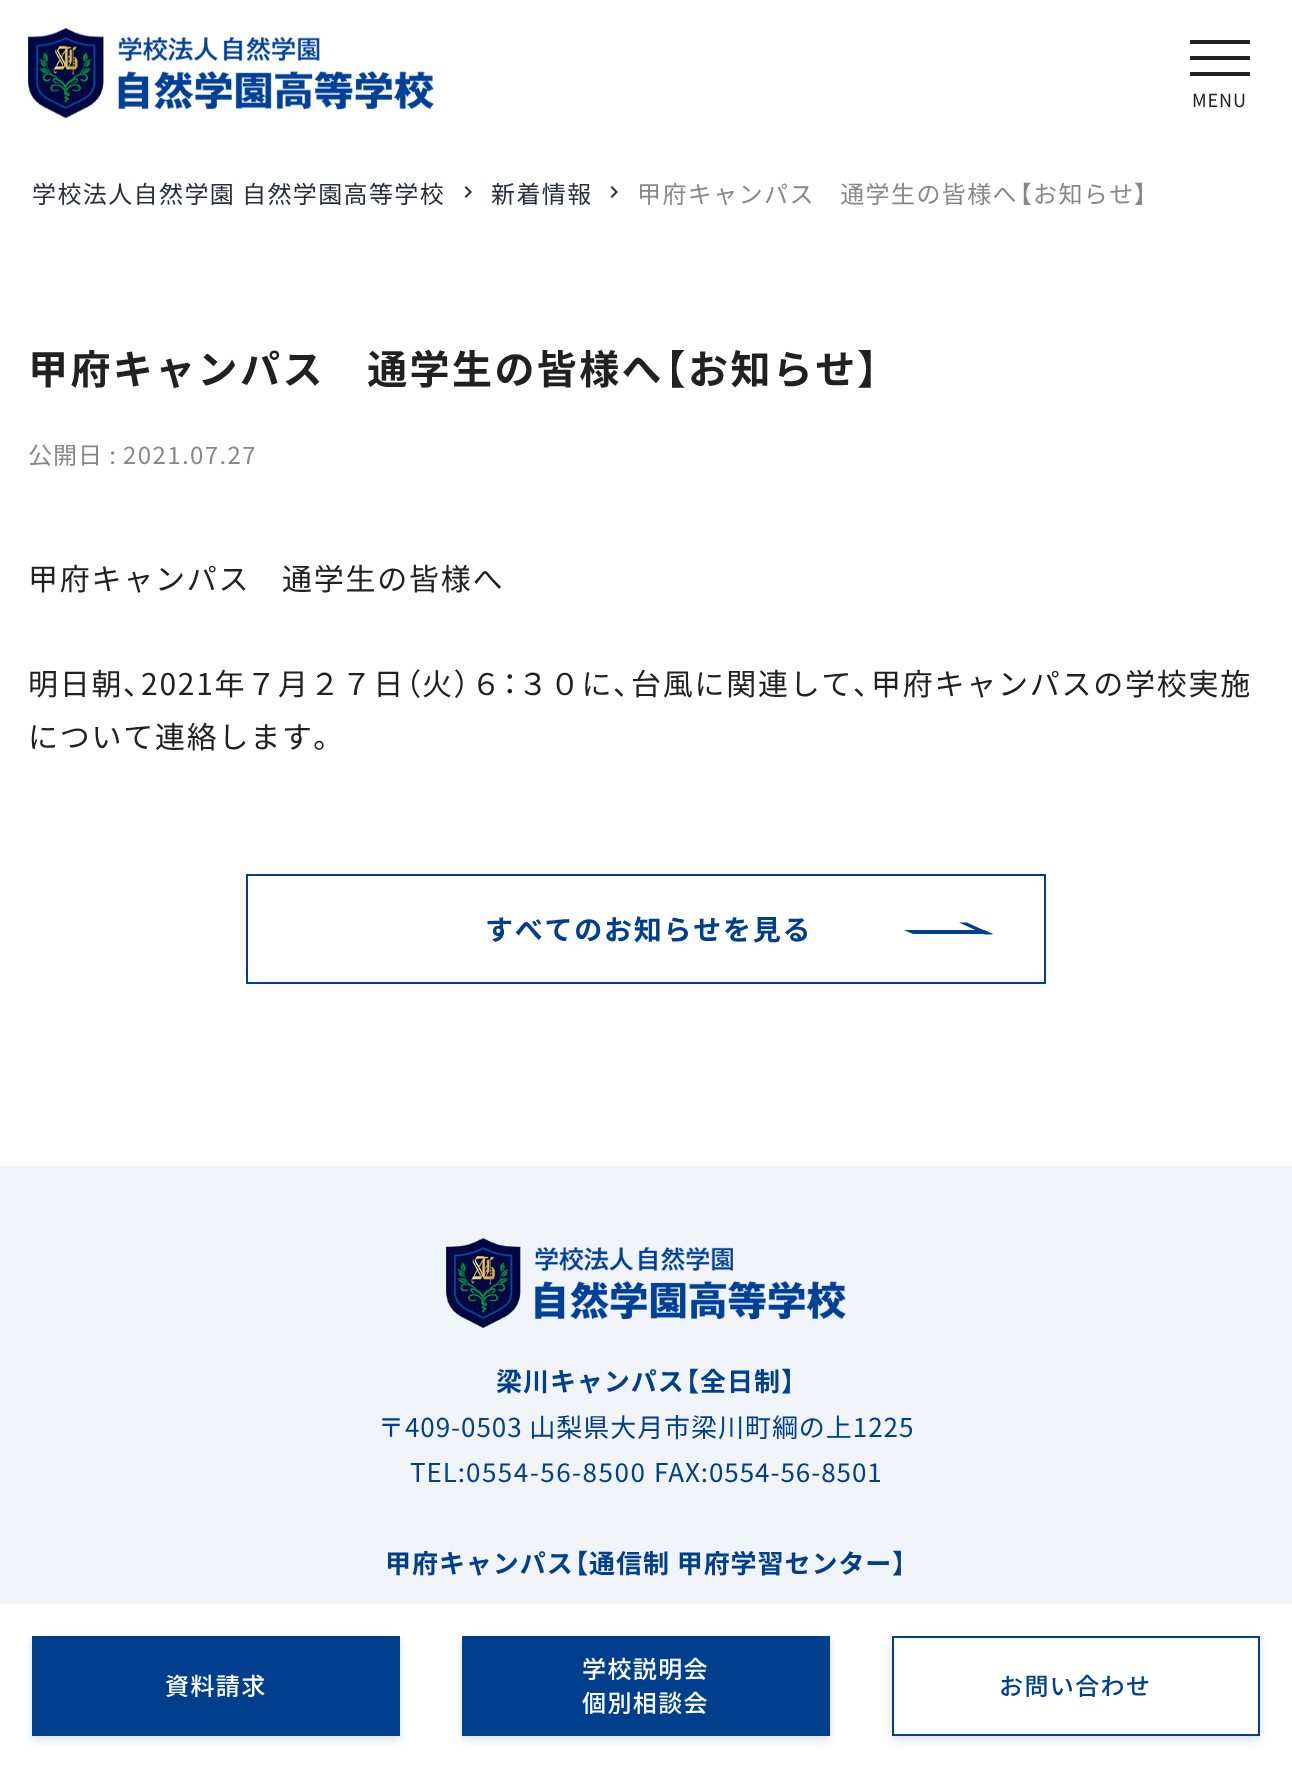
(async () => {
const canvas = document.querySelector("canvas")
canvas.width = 1292
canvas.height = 1768
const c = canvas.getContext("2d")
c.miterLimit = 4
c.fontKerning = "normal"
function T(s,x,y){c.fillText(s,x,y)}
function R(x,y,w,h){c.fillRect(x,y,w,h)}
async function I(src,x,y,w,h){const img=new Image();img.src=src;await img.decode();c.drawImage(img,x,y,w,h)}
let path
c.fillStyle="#fff"
R(0,0,1292,1768)
await I("1.png",28,27,406,91)
c.fillStyle="#212121"
R(1190,40,60,4)
R(1190,72,60,4)
R(1190,56,60,4)
c.letterSpacing="0.95px"
c.font="18px Noto Sans JP"
T("MENU",1192,107)
c.letterSpacing="1.4px"
c.font="24px Noto Sans JP"
c.fillStyle="#28303c"
T("学校法人自然学園 自然学園高等学校",32,203)
await I("2.png",464,186,8,12)
T("新着情報",491,203)
await I("2.png",610,186,8,12)
c.fillStyle="#888"
T("甲府キャンパス　通学生の皆様へ",637,203)
c.font="24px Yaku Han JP"
T("【",1019,203)
c.font="24px Noto Sans JP"
T("お知らせ",1033,203)
c.font="24px Yaku Han JP"
T("】",1134,203)
c.letterSpacing="2.4px"
c.font="bold 40px Noto Sans JP"
c.fillStyle="#212121"
T("甲府キャンパス　通学生の皆様へ",28,384)
c.font="bold 40px Yaku Han JP"
T("【",664,384)
c.font="bold 40px Noto Sans JP"
T("お知らせ",688,384)
c.font="bold 40px Yaku Han JP"
T("】",857,384)
c.letterSpacing="0.95px"
c.font="24px Noto Sans JP"
c.fillStyle="#888"
T("公開日 :",28,464)
c.letterSpacing="1.4px"
T("2021.07.27",123,464)
c.letterSpacing="1.75px"
c.font="30px Noto Sans JP"
c.fillStyle="#212121"
T("甲府キャンパス　通学生の皆様へ",28,590)
T("明日朝",28,695)
c.font="30px Yaku Han JP"
T("、",123,695)
c.font="30px Noto Sans JP"
T("2021年７月２７日",141,695)
c.font="30px Yaku Han JP"
T("（",406,695)
c.font="30px Noto Sans JP"
T("火",422,695)
c.font="30px Yaku Han JP"
T("）",454,695)
c.font="30px Noto Sans JP"
T("６",471,695)
c.font="30px Yaku Han JP"
T("：",503,695)
c.font="30px Noto Sans JP"
T("３０に",518,695)
c.font="30px Yaku Han JP"
T("、",613,695)
c.font="30px Noto Sans JP"
T("台風に関連して",631,695)
c.font="30px Yaku Han JP"
T("、",853,695)
c.font="30px Noto Sans JP"
T("甲府キャンパスの学校実施",871,695)
T("について連絡します",28,748)
c.font="30px Yaku Han JP"
T("。",313,748)
c.strokeStyle="#003f8e"
c.lineWidth=2
c.strokeRect(247,875,798,108)
c.font="bold 28px Noto Sans JP"
c.fillStyle="#003f8e"
T("すべてのお知らせを見る",485,940)
path = new Path2D("M959 922.5h8l26 12h-8z")
c.fill(path)
path = new Path2D("M904 930h80l9 4h-80z")
c.fill(path)
c.fillStyle="#f0f3f8"
R(0,1166,1292,438)
await I("3.png",446,1238,400,90)
c.letterSpacing="0.95px"
c.font="bold 26px Noto Sans JP"
c.fillStyle="#003f8e"
T("梁川キャンパス",496,1391)
c.font="bold 26px Yaku Han JP"
T("【",685,1391)
c.font="bold 26px Noto Sans JP"
T("全日制",700,1391)
c.font="bold 26px Yaku Han JP"
T("】",781,1391)
c.font="26px Noto Sans JP"
T("〒409-0503 山梨県大月市梁川町綱の上1225",378,1437)
T("TEL:",410,1482)
c.letterSpacing="1.5px"
T("0554-56-8500",466,1482)
c.letterSpacing="0.95px"
T("FAX:0554-56-8501",654,1482)
c.font="bold 26px Noto Sans JP"
T("甲府キャンパス",385,1573)
c.font="bold 26px Yaku Han JP"
T("【",574,1573)
c.font="bold 26px Noto Sans JP"
T("通信制 甲府学習センター",589,1573)
c.font="bold 26px Yaku Han JP"
T("】",892,1573)
c.fillStyle="#02307e26"
c.filter="blur(5px)"
c.beginPath()
c.rect(32,1640,368,100)
c.fill()
c.filter="none"
c.fillStyle="#003f8e"
R(32,1636,368,100)
c.letterSpacing="1.4px"
c.font="500 24px Noto Sans JP"
c.fillStyle="#fff"
T("資料請求",165,1695)
c.fillStyle="#02307e26"
c.filter="blur(5px)"
c.beginPath()
c.rect(462,1640,368,100)
c.fill()
c.filter="none"
c.fillStyle="#003f8e"
R(462,1636,368,100)
c.fillStyle="#fff"
T("学校説明会",582,1678)
T("個別相談会",582,1712)
c.save()
path = new Path2D("M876 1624h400v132h-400zm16 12h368v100h-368z")
c.clip(path,"evenodd")
c.fillStyle="#02307e26"
c.filter="blur(5px)"
c.beginPath()
c.rect(892,1640,368,100)
c.fill()
c.filter="none"
c.restore()
c.strokeRect(893,1637,366,98)
c.fillStyle="#003f8e"
T("お問い合わせ",999,1695)
})()
